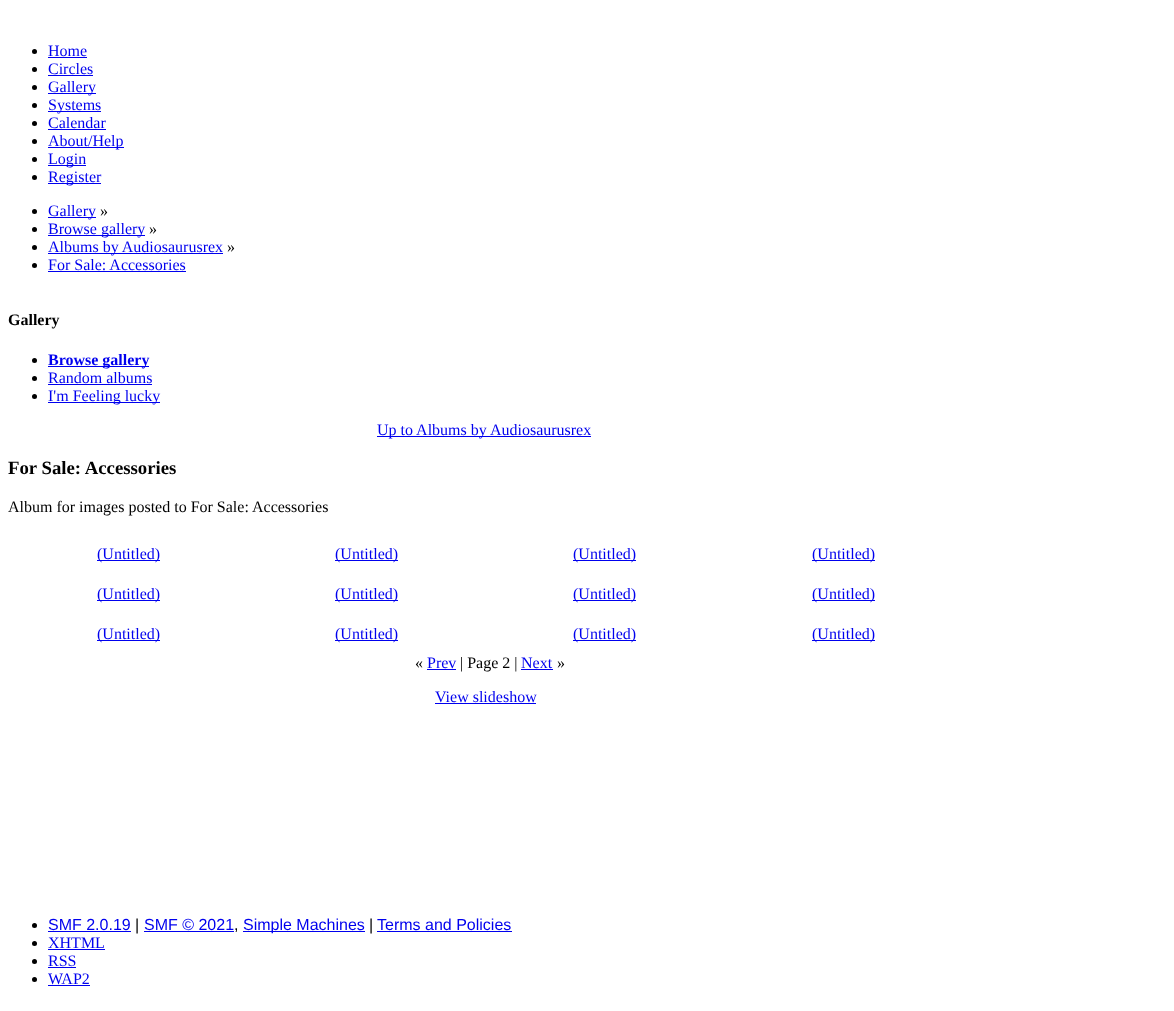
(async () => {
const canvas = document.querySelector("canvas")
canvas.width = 1174
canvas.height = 1011
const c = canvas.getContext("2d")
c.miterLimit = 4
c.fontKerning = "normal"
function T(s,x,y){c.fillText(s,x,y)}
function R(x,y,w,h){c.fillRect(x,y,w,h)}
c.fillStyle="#fff"
R(0,0,1174,1011)
c.fillStyle="#000"
c.beginPath()
c.arc(34.5,51.5,2.5,0,7)
c.fill()
c.font="16px Liberation Serif"
c.fillStyle="#00e"
T("Home",48,56)
R(48,57,39,1)
c.fillStyle="#000"
c.beginPath()
c.arc(34.5,69.5,2.5,0,7)
c.fill()
c.fillStyle="#00e"
T("Circles",48,74)
R(48,75,45,1)
c.fillStyle="#000"
c.beginPath()
c.arc(34.5,87.5,2.5,0,7)
c.fill()
c.fillStyle="#00e"
R(48,93,48,1)
T("Gallery",48,92)
c.fillStyle="#000"
c.beginPath()
c.arc(34.5,105.5,2.5,0,7)
c.fill()
c.fillStyle="#00e"
R(48,111,53,1)
T("Systems",48,110)
c.fillStyle="#000"
c.beginPath()
c.arc(34.5,123.5,2.5,0,7)
c.fill()
c.fillStyle="#00e"
T("Calendar",48,128)
R(48,129,58,1)
c.fillStyle="#000"
c.beginPath()
c.arc(34.5,141.5,2.5,0,7)
c.fill()
c.fillStyle="#00e"
R(48,147,76,1)
T("About/Help",48,146)
c.fillStyle="#000"
c.beginPath()
c.arc(34.5,159.5,2.5,0,7)
c.fill()
c.fillStyle="#00e"
R(48,165,38,1)
T("Login",48,164)
c.fillStyle="#000"
c.beginPath()
c.arc(34.5,177.5,2.5,0,7)
c.fill()
c.fillStyle="#00e"
R(48,183,53,1)
T("Register",48,182)
c.fillStyle="#000"
c.beginPath()
c.arc(34.5,211.5,2.5,0,7)
c.fill()
c.fillStyle="#00e"
R(48,217,48,1)
T("Gallery",48,216)
c.fillStyle="#000"
T("»",100,216)
c.beginPath()
c.arc(34.5,229.5,2.5,0,7)
c.fill()
c.fillStyle="#00e"
R(48,235,97,1)
T("Browse gallery",48,234)
c.fillStyle="#000"
T("»",149,234)
c.beginPath()
c.arc(34.5,247.5,2.5,0,7)
c.fill()
c.fillStyle="#00e"
R(48,253,175,1)
T("Albums by Audiosaurusrex",48,252)
c.fillStyle="#000"
T("»",227,252)
c.beginPath()
c.arc(34.5,265.5,2.5,0,7)
c.fill()
c.fillStyle="#00e"
T("For Sale: Accessories",48,270)
R(48,271,138,1)
c.font="bold 16px Liberation Serif"
c.fillStyle="#000"
T("Gallery",8,325)
c.beginPath()
c.arc(34.5,360.5,2.5,0,7)
c.fill()
c.fillStyle="#00e"
R(48,366,101,1)
T("Browse gallery",48,365)
c.fillStyle="#000"
c.beginPath()
c.arc(34.5,378.5,2.5,0,7)
c.fill()
c.font="16px Liberation Serif"
c.fillStyle="#00e"
T("Random albums",48,383)
R(48,384,104,1)
c.fillStyle="#000"
c.beginPath()
c.arc(34.5,396.5,2.5,0,7)
c.fill()
c.fillStyle="#00e"
R(48,402,112,1)
T("I'm Feeling lucky",48,401)
R(377,436,214,1)
T("Up to Albums by Audiosaurusrex",377,435)
c.font="bold 18.75px Liberation Serif"
c.fillStyle="#000"
T("For Sale: Accessories",8,474)
c.font="16px Liberation Serif"
T("Album for images posted to For Sale: Accessories",8,512)
c.fillStyle="#00e"
R(97,560,63,1)
T("(Untitled)",97,559)
R(335,560,63,1)
T("(Untitled)",335,559)
R(573,560,63,1)
T("(Untitled)",573,559)
R(812,560,63,1)
T("(Untitled)",812,559)
R(97,600,63,1)
T("(Untitled)",97,599)
R(335,600,63,1)
T("(Untitled)",335,599)
R(573,600,63,1)
T("(Untitled)",573,599)
R(812,600,63,1)
T("(Untitled)",812,599)
R(97,640,63,1)
T("(Untitled)",97,639)
R(335,640,63,1)
T("(Untitled)",335,639)
R(573,640,63,1)
T("(Untitled)",573,639)
R(812,640,63,1)
T("(Untitled)",812,639)
c.fillStyle="#000"
T("«",415,668)
c.fillStyle="#00e"
T("Prev",427,668)
R(427,669,29,1)
c.fillStyle="#000"
T("| Page 2 |",460,668)
c.fillStyle="#00e"
T("Next",521,668)
R(521,669,32,1)
c.fillStyle="#000"
T("»",557,668)
c.fillStyle="#00e"
T("View slideshow",435,702)
R(435,703,101,1)
c.fillStyle="#000"
c.beginPath()
c.arc(34.5,925.5,2.5,0,7)
c.fill()
c.font="16px Liberation Sans"
c.fillStyle="#00e"
T("SMF 2.0.19",48,930)
R(48,931,83,1)
c.fillStyle="#000"
T("|",135,930)
c.fillStyle="#00e"
T("SMF © 2021",144,930)
R(243,931,122,1)
T("Simple Machines",243,930)
c.fillStyle="#000"
T("|",369,930)
c.fillStyle="#00e"
T("Terms and Policies",377,930)
R(377,931,135,1)
c.fillStyle="#000"
T(",",234,930)
c.fillStyle="#00e"
R(144,931,90,1)
c.fillStyle="#000"
c.beginPath()
c.arc(34.5,943.5,2.5,0,7)
c.fill()
c.font="16px Liberation Serif"
c.fillStyle="#00e"
T("XHTML",48,948)
R(48,949,57,1)
c.fillStyle="#000"
c.beginPath()
c.arc(34.5,961.5,2.5,0,7)
c.fill()
c.fillStyle="#00e"
T("RSS",48,966)
R(48,967,28,1)
c.fillStyle="#000"
c.beginPath()
c.arc(34.5,979.5,2.5,0,7)
c.fill()
c.fillStyle="#00e"
T("WAP2",48,984)
R(48,985,42,1)
})()
